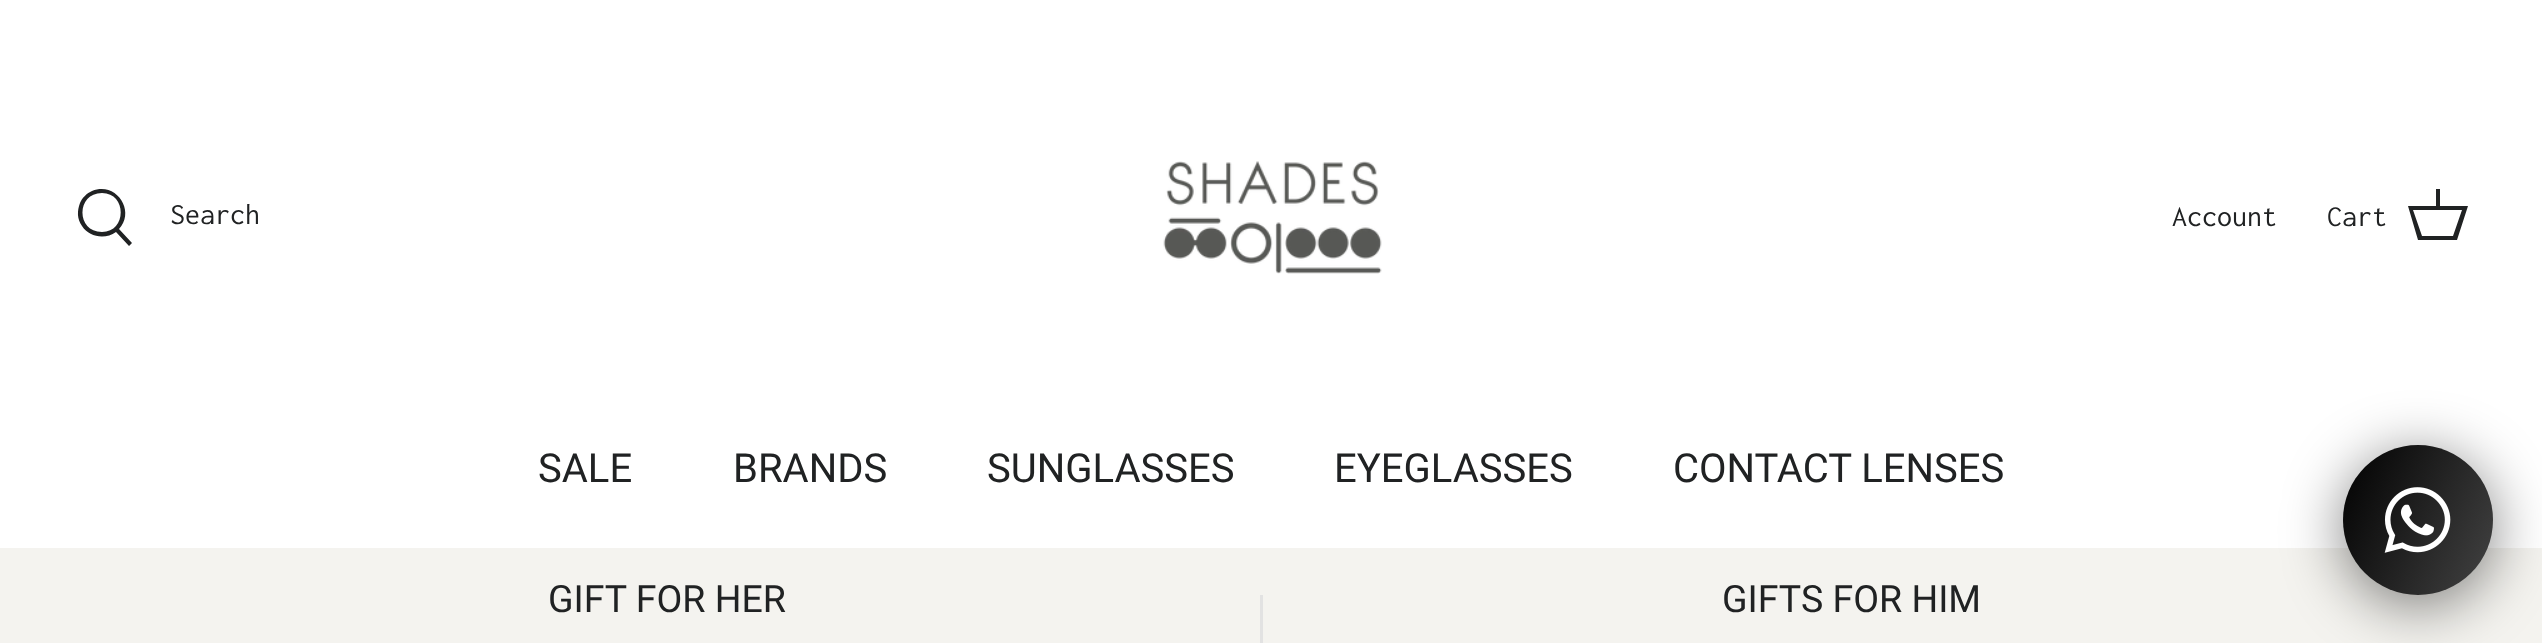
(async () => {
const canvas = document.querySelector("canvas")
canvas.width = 2542
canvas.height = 643
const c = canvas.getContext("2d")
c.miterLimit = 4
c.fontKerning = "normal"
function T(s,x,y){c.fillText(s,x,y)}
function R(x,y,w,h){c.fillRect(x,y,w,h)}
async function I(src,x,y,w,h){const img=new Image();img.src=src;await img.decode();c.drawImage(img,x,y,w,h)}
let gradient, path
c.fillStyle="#fff"
R(0,0,2542,643)
c.fillStyle="#202223"
path = new Path2D("M119 229l13 14l-3 3l-13-14c-11 8-27 5-34-6c-5-7-5-15-2-23c2-5 7-10 12-12c24-10 44 20 27 38zm-17 3c25 0 25-39 0-39c-26 0-26 39 0 39z")
c.fill(path)
c.font="30px Inconsolata"
T("Search",170,224)
await I("1.png",1163,161,219,113)
T("Account",2172,226)
T("Cart",2327,226)
path = new Path2D("M2436 206v-17h4v17h28l-11 34h-39l-10-34zm-23 4l9 26h31l9-26z")
c.fill(path)
c.font="40px Roboto"
T("SALE",538,482)
T("BRANDS",733,482)
T("SUNGLASSES",987,482)
T("EYEGLASSES",1334,482)
T("CONTACT LENSES",1673,482)
c.fillStyle="#f4f3ef"
R(0,548,2542,95)
c.fillStyle="#00000080"
c.filter="blur(30px)"
c.beginPath()
c.roundRect(2343,455,150,150,75)
c.fill()
c.filter="none"
gradient = c.createLinearGradient(2327,478,2508,562)
gradient.addColorStop(0,"#000")
gradient.addColorStop(1,"#434343")
c.fillStyle = gradient
c.beginPath()
c.arc(2418,520,75,0,7)
c.fill()
await I("2.png",2384,487,67,66)
c.font="37.5px Roboto"
c.fillStyle="#202223"
T("GIFT FOR HER",548,612)
c.fillStyle="#e2e2e2"
R(1260,595,3,48)
c.fillStyle="#202223"
T("GIFTS FOR HIM",1722,612)
})()
